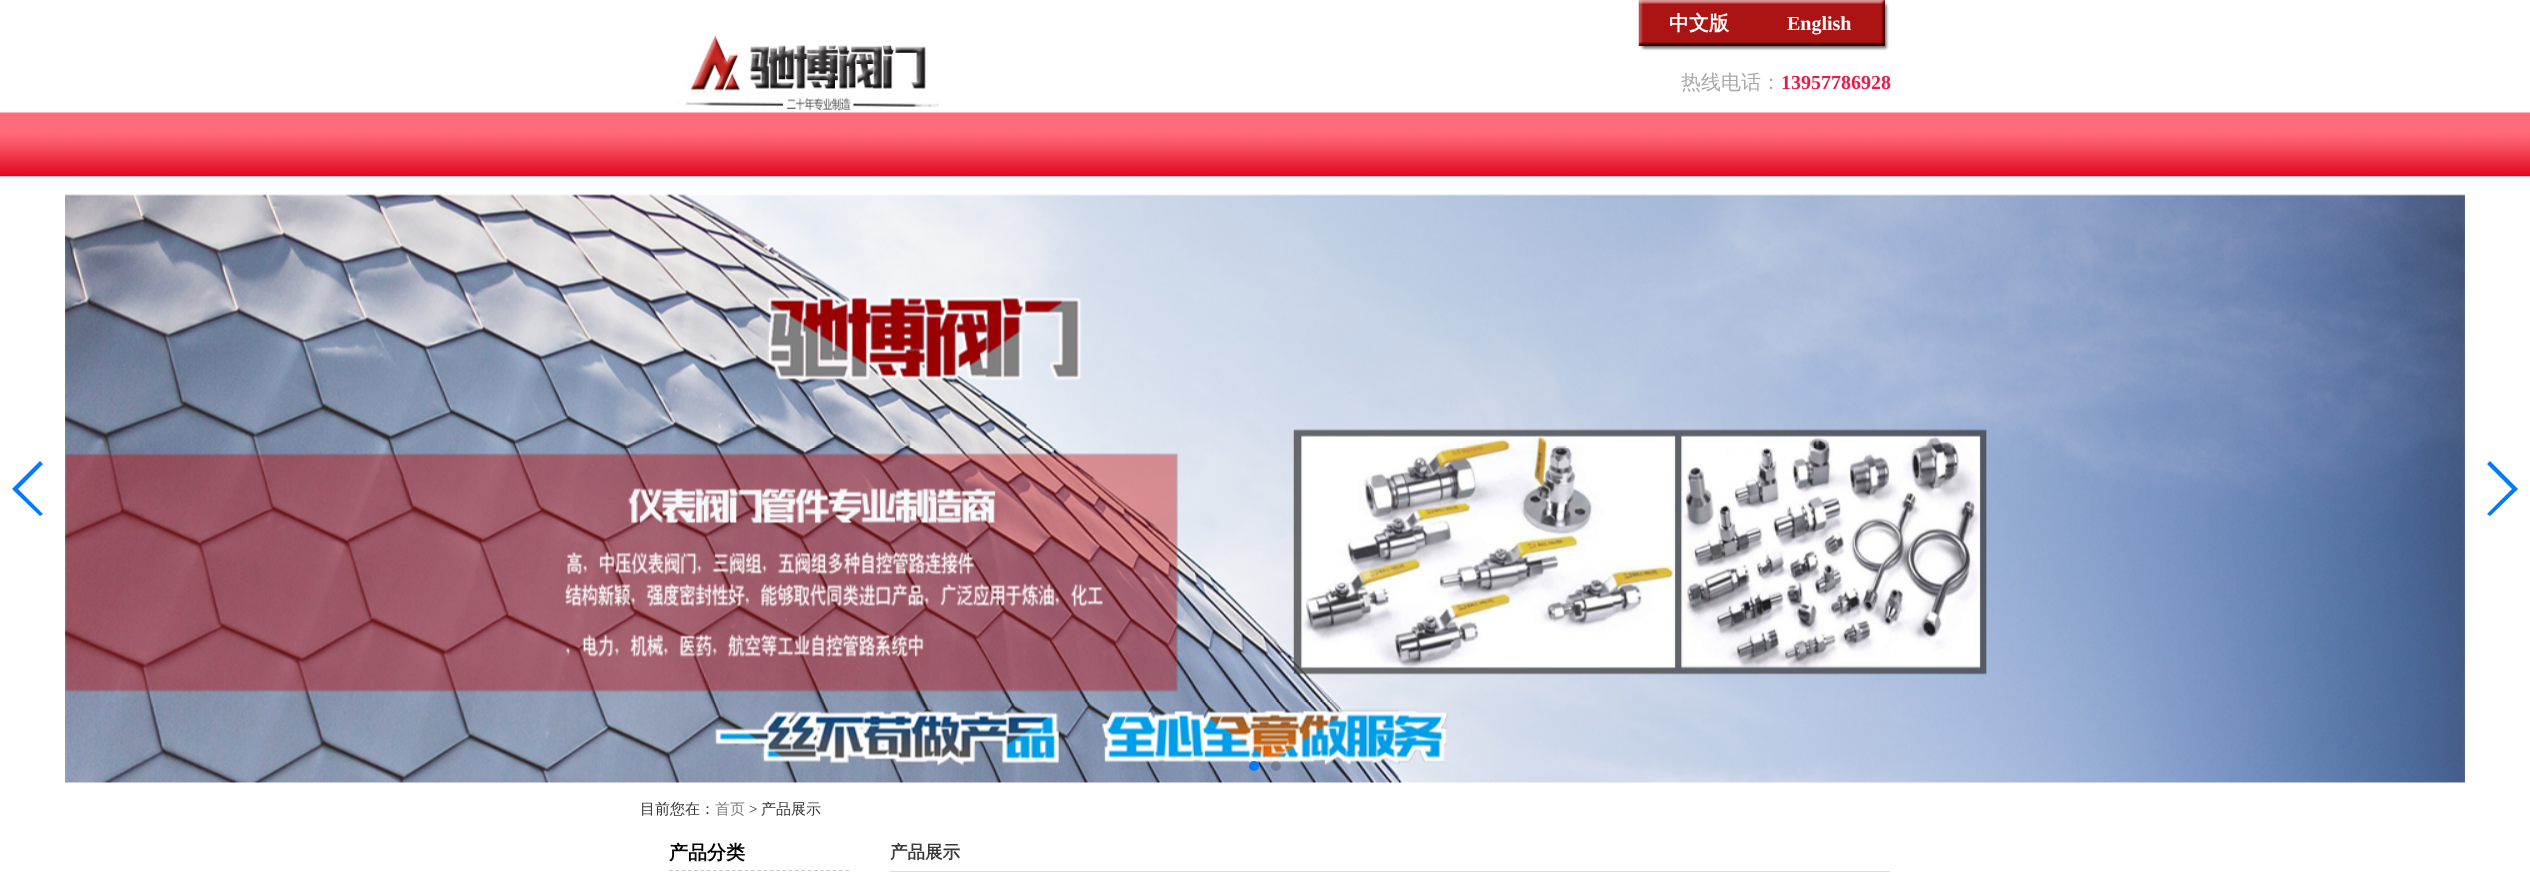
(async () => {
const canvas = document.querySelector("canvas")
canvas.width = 2530
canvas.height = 882
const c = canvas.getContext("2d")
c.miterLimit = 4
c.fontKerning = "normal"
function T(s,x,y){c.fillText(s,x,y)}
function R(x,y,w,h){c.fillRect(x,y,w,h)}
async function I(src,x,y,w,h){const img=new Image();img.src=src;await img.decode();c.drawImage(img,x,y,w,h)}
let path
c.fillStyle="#fff"
R(0,0,2530,882)
await I("1.png",1638,0,251,51)
c.font="bold 20px WenQuanYi Zen Hei"
T("中文版",1669,30)
c.font="bold 20px Liberation Serif"
T("English",1787,30)
await I("2.png",676,35,263,76)
c.font="500 20px WenQuanYi Zen Hei"
c.fillStyle="#a9a9aa"
T("热线电话：",1681,89)
c.font="bold 20px Liberation Serif"
c.fillStyle="#e61d4c"
T("13957786928",1781,89)
await I("3.png",0,112,2530,65)
c.fillStyle="#d80a21"
R(0,175,2530,1)
c.fillStyle="#007aff"
path = new Path2D("M12 489l28-28l3 3l-25 25l25 25l-3 2z")
c.fill(path)
await I("4.png",65,194,2400,589)
path = new Path2D("M2518 489l-28 27l-3-2l25-25l-25-25l3-3z")
c.fill(path)
c.beginPath()
c.arc(1254,766,5,0,7)
c.fill()
c.fillStyle="#00000033"
c.beginPath()
c.arc(1276,766,5,0,7)
c.fill()
c.font="500 15px WenQuanYi Zen Hei"
c.fillStyle="#333"
T("目前您在：",640,814)
c.fillStyle="#808080"
T("首页",715,814)
c.font="15px Liberation Serif"
c.fillStyle="#333"
T(">",749,814)
c.font="500 15px WenQuanYi Zen Hei"
T("产品展示",761,814)
path = new Path2D("M669 870.5h180")
c.strokeStyle="#cacaca"
c.lineWidth=1.2
c.setLineDash([3.75,2.55])
c.stroke(path)
c.font="bold 19px WenQuanYi Zen Hei"
c.fillStyle="#000"
T("产品分类",669,859)
c.fillStyle="#dedede"
R(890,871,1000,1)
c.font="bold 17.5px WenQuanYi Zen Hei"
c.fillStyle="#3b3b3b"
T("产品展示",890,858)
})()
